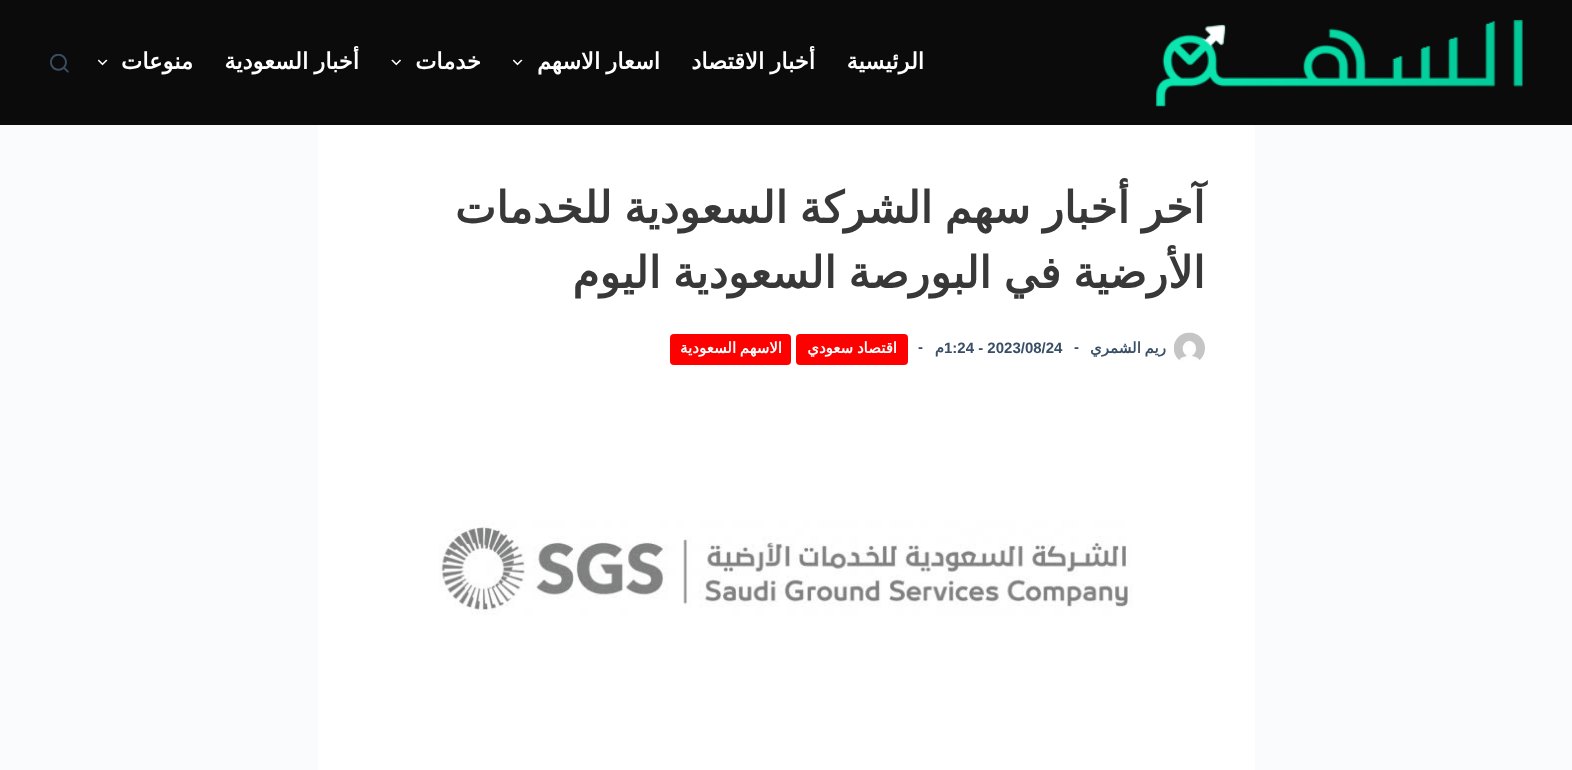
(async () => {
const canvas = document.querySelector("canvas")
canvas.width = 1572
canvas.height = 770
const c = canvas.getContext("2d")
c.miterLimit = 4
c.fontKerning = "normal"
function T(s,x,y){c.fillText(s,x,y)}
function R(x,y,w,h){c.fillRect(x,y,w,h)}
function Q(x,y,w,h,r){c.beginPath();c.roundRect(x,y,w,h,r);c.fill()}
async function I(src,x,y,w,h){const img=new Image();img.src=src;await img.decode();c.drawImage(img,x,y,w,h)}
c.fillStyle="#fafbfc"
R(0,0,1572,770)
c.fillStyle="#0b0b0b"
R(0,0,1572,125)
await I("1.png",1156,20,367,87)
c.direction="rtl"
c.font="bold 22.5px DejaVu Sans"
c.fillStyle="#fff"
T("الرئيسية",924,69)
c.wordSpacing="-1px"
T("أخبار الاقتصاد",815,69)
T("اسعار الاسهم",660,69)
await I("2.png",513,59,10,7)
c.wordSpacing="0px"
T("خدمات",481,69)
await I("3.png",391,59,10,7)
c.wordSpacing="-1px"
T("أخبار السعودية",359,69)
c.wordSpacing="0px"
T("منوعات",193,69)
await I("2.png",98,59,10,7)
await I("4.png",50,54,19,19)
Q(318,125,937,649,4)
c.wordSpacing="-1.75px"
c.font="bold 43.75px DejaVu Sans"
c.fillStyle="#383838"
T("آخر أخبار سهم الشركة السعودية للخدمات",1205,223)
T("الأرضية في البورصة السعودية اليوم",1205,288)
await I("5.png",1173,332,32,30)
c.wordSpacing="-1px"
c.font="bold 15px DejaVu Sans"
c.fillStyle="#3a4f66"
T("ريم الشمري",1166,353)
c.wordSpacing="0px"
c.direction="ltr"
c.font="bold 15px Liberation Sans"
T("-",1074,352)
T("1:24 - 2023/08/24",944,353)
c.direction="rtl"
c.font="bold 15px DejaVu Sans"
T("م",944,353)
c.direction="ltr"
c.font="bold 15px Liberation Sans"
T("-",918,352)
c.fillStyle="#f00"
Q(796,334,112,31,4)
c.wordSpacing="-1px"
c.direction="rtl"
c.font="bold 15px DejaVu Sans"
c.fillStyle="#fff"
T("اقتصاد سعودي",897,353)
c.fillStyle="#f00"
Q(670,334,121,31,4)
c.fillStyle="#fff"
T("الاسهم السعودية",782,353)
await I("6.png",439,520,694,95)
})()
